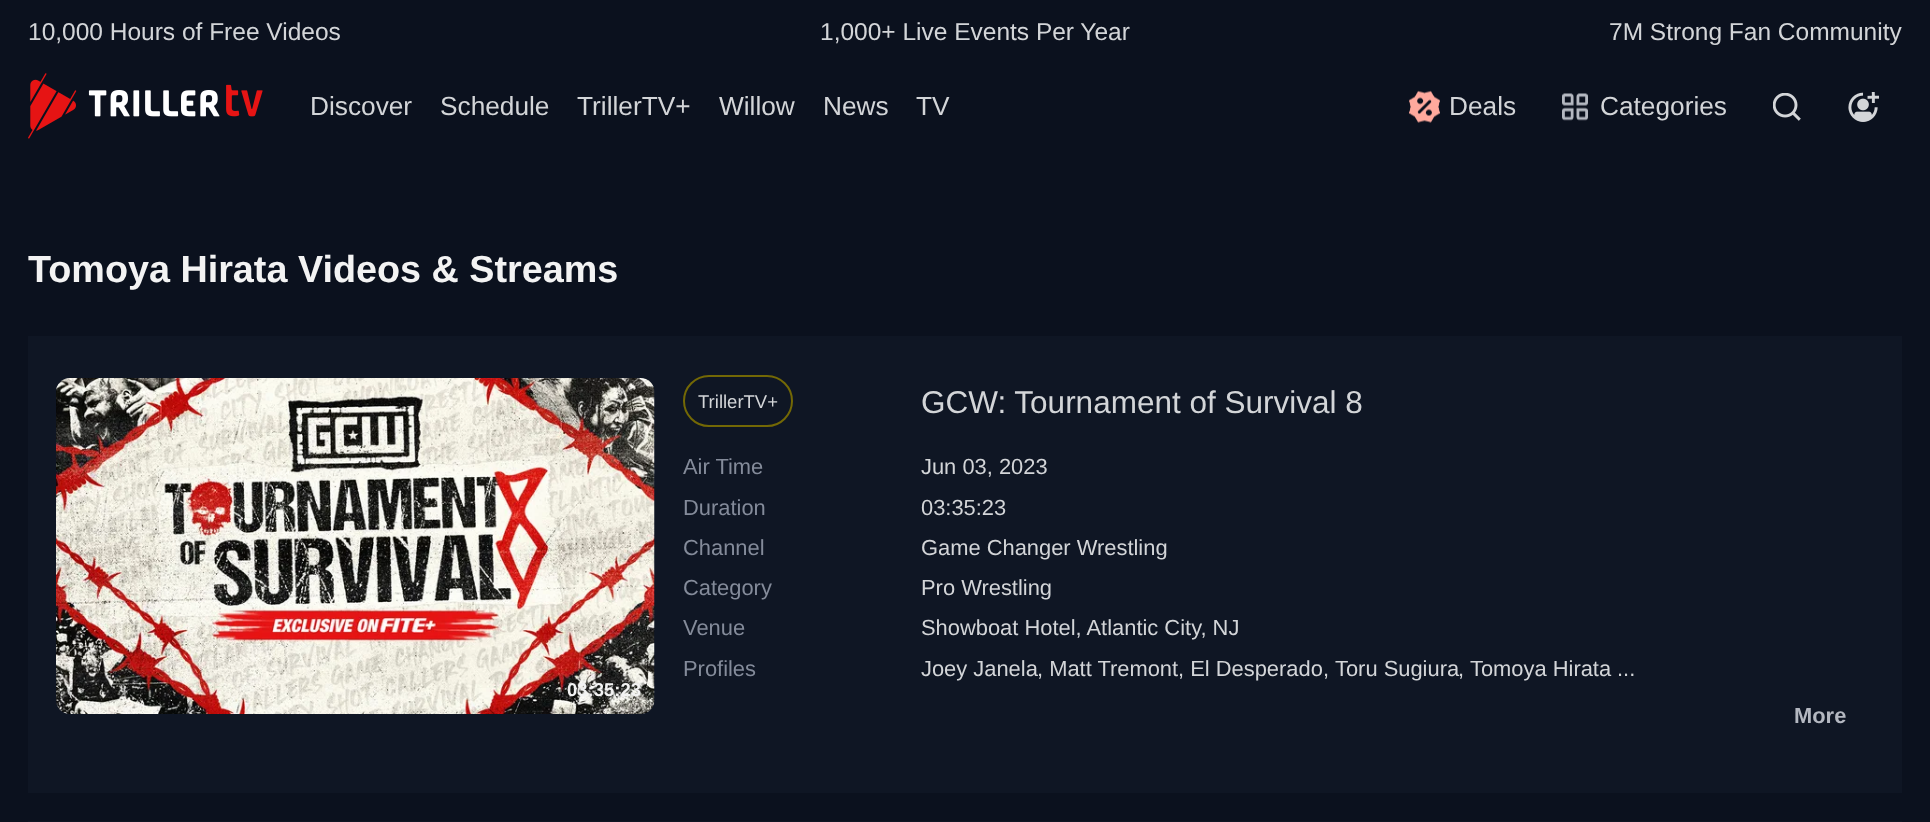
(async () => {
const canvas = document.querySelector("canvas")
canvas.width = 1930
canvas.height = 822
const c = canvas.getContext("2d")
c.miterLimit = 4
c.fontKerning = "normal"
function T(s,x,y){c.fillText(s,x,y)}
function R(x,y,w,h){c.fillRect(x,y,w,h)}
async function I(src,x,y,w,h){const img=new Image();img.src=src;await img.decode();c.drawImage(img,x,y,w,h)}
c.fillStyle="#0b111e"
R(0,0,1930,822)
c.font="24.5px Liberation Sans"
c.fillStyle="#d3d5d8"
T("10,000 Hours of Free Videos",28,40)
T("1,000+ Live Events Per Year",820,40)
T("7M Strong Fan Community",1609,40)
await I("1.png",28,73,235,66)
c.font="26.25px Liberation Sans"
T("Discover",310,115)
T("Schedule",440,115)
T("TrillerTV+",577,115)
T("Willow",719,115)
T("News",823,115)
T("TV",916,115)
await I("2.png",1409,90,31,33)
T("Deals",1449,115)
await I("3.png",1562,93,26,28)
T("Categories",1600,115)
await I("4.png",1773,93,28,28)
await I("5.png",1848,92,31,30)
c.font="bold 37.75px Liberation Sans"
c.fillStyle="#f3f3f3"
T("Tomoya Hirata Videos & Streams",28,282)
c.fillStyle="#0f1624"
R(28,336,1874,457)
await I("6.png",56,378,599,336)
c.font="bold 18.5px Liberation Sans"
c.fillStyle="#f3f3f3"
T("03:35:23",567,696)
c.beginPath()
c.roundRect(684,376,108,50,25)
c.strokeStyle="#736805"
c.lineWidth=2
c.stroke()
c.font="18.5px Liberation Sans"
c.fillStyle="#d3d5d8"
T("TrillerTV+",698,408)
c.font="31.5px Liberation Sans"
T("GCW: Tournament of Survival 8",921,413)
c.font="21.9px Liberation Sans"
c.fillStyle="#848b9a"
T("Air Time",683,474)
c.fillStyle="#d3d5d8"
T("Jun 03, 2023",921,474)
c.fillStyle="#848b9a"
T("Duration",683,515)
c.fillStyle="#d3d5d8"
T("03:35:23",921,515)
c.fillStyle="#848b9a"
T("Channel",683,555)
c.fillStyle="#d3d5d8"
T("Game Changer Wrestling",921,555)
c.fillStyle="#848b9a"
T("Category",683,595)
c.fillStyle="#d3d5d8"
T("Pro Wrestling",921,595)
c.fillStyle="#848b9a"
T("Venue",683,635)
c.fillStyle="#d3d5d8"
T("Showboat Hotel, Atlantic City, NJ",921,635)
c.fillStyle="#848b9a"
T("Profiles",683,676)
c.fillStyle="#d3d5d8"
T("Joey Janela",921,676)
T(", Matt Tremont",1037,676)
T(", El Desperado",1178,676)
T(",",1323,676)
T("Toru Sugiura",1335,676)
T(",",1458,676)
T("Tomoya Hirata",1470,676)
T("...",1617,676)
c.font="bold 21.9px Liberation Sans"
c.fillStyle="#b4b8c1"
T("More",1794,723)
c.fillStyle="#0f1624"
R(28,821,1874,1)
})()
